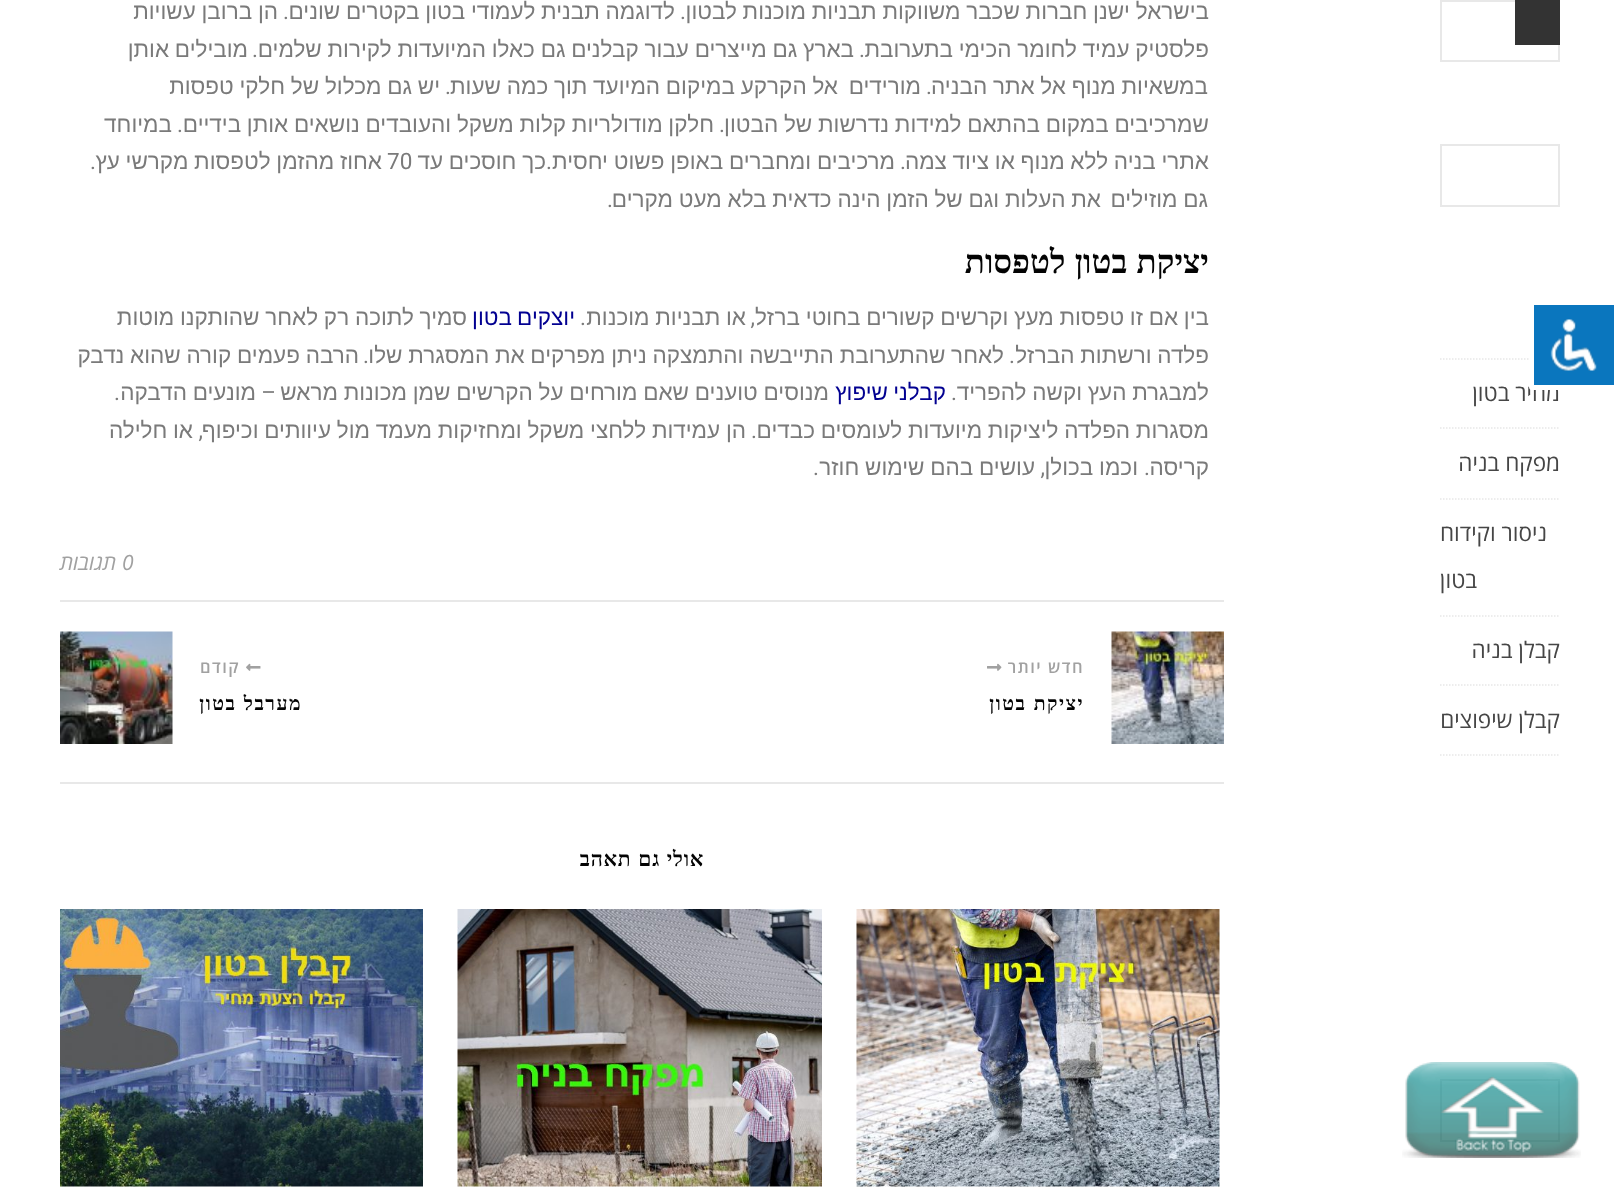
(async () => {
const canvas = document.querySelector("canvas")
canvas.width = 1620
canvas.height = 1187
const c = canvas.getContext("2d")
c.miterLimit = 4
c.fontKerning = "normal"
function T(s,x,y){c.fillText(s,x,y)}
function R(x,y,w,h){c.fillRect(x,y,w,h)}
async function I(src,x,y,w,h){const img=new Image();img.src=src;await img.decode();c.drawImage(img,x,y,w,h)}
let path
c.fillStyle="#fff"
R(0,0,1620,1187)
path = new Path2D("M1440 359h120")
c.strokeStyle="#e8e8e8"
c.lineWidth=1.5
c.setLineDash([1.5,1.5])
c.stroke(path)
c.direction="rtl"
c.font="22.5px Open Sans"
c.fillStyle="#464646"
T("מחיר בטון",1560,401)
c.fillStyle="#0a76be"
c.beginPath()
c.roundRect(1531.5,302.5,85,85,.5)
c.fill()
c.strokeStyle="#fff"
c.lineWidth=5
c.setLineDash([])
c.stroke()
await I("1.png",1550,319,47,52)
c.strokeStyle="#e8e8e8"
c.lineWidth=2
c.strokeRect(1441,1,118,60)
c.fillStyle="#333"
R(1515,0,45,45)
c.strokeRect(1441,145,118,61)
path = new Path2D("M1440 428h120")
c.lineWidth=1.5
c.setLineDash([1.5,1.5])
c.stroke(path)
path = new Path2D("M1440 499h120")
c.stroke(path)
c.fillStyle="#464646"
T("מפקח בניה",1560,471)
path = new Path2D("M1440 616h120")
c.stroke(path)
T("ניסור וקידוח",1547,541)
T("בטון",1477,588)
path = new Path2D("M1440 685h120")
c.stroke(path)
T("קבלן בניה",1560,658)
path = new Path2D("M1440 755h120")
c.stroke(path)
T("קבלן שיפוצים",1560,728)
c.lineWidth=2
c.setLineDash([])
c.strokeRect(1441,1080,118,61)
c.wordSpacing="-0.5px"
c.font="22.5px Liberation Sans"
c.fillStyle="#7a7a7a"
T("בישראל ישנן חברות שכבר משווקות תבניות מוכנות לבטון",1209,19)
c.wordSpacing="0px"
c.font="22.5px Roboto"
T(".",686,19)
c.wordSpacing="-0.5px"
c.font="22.5px Liberation Sans"
T("לדוגמה תבנית לעמודי בטון בקטרים שונים",675,19)
c.wordSpacing="0px"
c.font="22.5px Roboto"
T(".",289,19)
c.wordSpacing="-0.5px"
c.font="22.5px Liberation Sans"
T("הן ברובן עשויות",278,19)
T("פלסטיק עמיד לחומר הכימי בתערובת",1209,57)
c.wordSpacing="0px"
c.font="22.5px Roboto"
T(".",865,57)
c.wordSpacing="-0.5px"
c.font="22.5px Liberation Sans"
T("בארץ גם מייצרים עבור קבלנים גם כאלו המיועדות לקירות שלמים",854,57)
c.wordSpacing="0px"
c.font="22.5px Roboto"
T(".",258,57)
c.wordSpacing="-0.5px"
c.font="22.5px Liberation Sans"
T("מובילים אותן",248,57)
T("במשאיות מנוף אל אתר הבניה",1208,94)
c.wordSpacing="0px"
c.font="22.5px Roboto"
T(".",932,94)
c.font="22.5px Liberation Sans"
T("מורידים",921,94)
c.wordSpacing="-0.5px"
T("אל הקרקע במיקום המיועד תוך כמה שעות",838,94)
c.wordSpacing="0px"
c.font="22.5px Roboto"
T(".",451,94)
c.wordSpacing="-0.5px"
c.font="22.5px Liberation Sans"
T("יש גם מכלול של חלקי טפסות",440,94)
T("שמרכיבים במקום בהתאם למידות נדרשות של הבטון",1209,132)
c.wordSpacing="0px"
c.font="22.5px Roboto"
T(".",725,132)
c.wordSpacing="-0.5px"
c.font="22.5px Liberation Sans"
T("חלקן מודולריות קלות משקל והעובדים נושאים אותן בידיים",714,132)
c.wordSpacing="0px"
c.font="22.5px Roboto"
T(".",183,132)
c.font="22.5px Liberation Sans"
T("במיוחד",172,132)
c.wordSpacing="-0.5px"
T("אתרי בניה ללא מנוף או ציוד צמה",1209,169)
c.wordSpacing="0px"
c.font="22.5px Roboto"
T(".",906,169)
c.wordSpacing="-0.5px"
c.font="22.5px Liberation Sans"
T("מרכיבים ומחברים באופן פשוט יחסית",895,169)
c.wordSpacing="0px"
c.font="22.5px Roboto"
T(".",552,169)
c.wordSpacing="-0.5px"
c.font="22.5px Liberation Sans"
T("כך חוסכים עד",546,169)
c.wordSpacing="0px"
c.direction="ltr"
c.font="22.5px Roboto"
T("70",387,169)
c.wordSpacing="-0.5px"
c.direction="rtl"
c.font="22.5px Liberation Sans"
T("אחוז מהזמן לטפסות מקרשי עץ",382,169)
c.wordSpacing="0px"
c.font="22.5px Roboto"
T(".",96,169)
c.wordSpacing="-0.5px"
c.font="22.5px Liberation Sans"
T("גם מוזילים",1208,207)
T("את העלות וגם של הזמן הינה כדאית בלא מעט מקרים",1101,207)
c.wordSpacing="0px"
c.font="22.5px Roboto"
T(".",613,207)
c.wordSpacing="1px"
c.font="bold 33px Liberation Serif"
c.fillStyle="#030303"
T("יציקת בטון לטפסות",1209,273)
c.wordSpacing="-0.5px"
c.font="22.5px Liberation Sans"
c.fillStyle="#7a7a7a"
T("בין אם זו טפסות מעץ וקרשים קשורים בחוטי ברזל",1209,325)
c.wordSpacing="0px"
c.font="22.5px Roboto"
T(",",755,325)
c.wordSpacing="-0.5px"
c.font="22.5px Liberation Sans"
T("או תבניות מוכנות",746,325)
c.wordSpacing="0px"
c.font="22.5px Roboto"
T(".",586,325)
c.wordSpacing="-1px"
c.font="22.5px Liberation Sans"
c.fillStyle="#020091"
T("יוצקים בטון",575,325)
c.wordSpacing="-0.5px"
c.fillStyle="#7a7a7a"
T("סמיך לתוכה רק לאחר שהותקנו מוטות",467,325)
T("פלדה ורשתות הברזל",1209,363)
c.wordSpacing="0px"
c.font="22.5px Roboto"
T(".",1015,363)
c.wordSpacing="-0.5px"
c.font="22.5px Liberation Sans"
T("לאחר שהתערובת התייבשה והתמצקה ניתן מפרקים את המסגרת שלו",1004,363)
c.wordSpacing="0px"
c.font="22.5px Roboto"
T(".",369,363)
c.wordSpacing="-0.5px"
c.font="22.5px Liberation Sans"
T("הרבה פעמים קורה שהוא נדבק",359,363)
T("למבגרת העץ וקשה להפריד",1209,400)
c.wordSpacing="-1px"
c.fillStyle="#020091"
T("קבלני שיפוץ",946,400)
c.wordSpacing="-0.5px"
c.fillStyle="#7a7a7a"
T("מנוסים טוענים שאם מורחים על הקרשים שמן מכונות מראש",829,400)
c.wordSpacing="0px"
c.font="22.5px Roboto"
T("–",276,400)
c.wordSpacing="-0.5px"
c.font="22.5px Liberation Sans"
T("מונעים הדבקה",256,400)
c.wordSpacing="0px"
c.font="22.5px Roboto"
T(".",957,400)
T(".",120,400)
c.wordSpacing="-0.5px"
c.font="22.5px Liberation Sans"
T("מסגרות הפלדה ליציקות מיועדות לעומסים כבדים",1209,438)
c.wordSpacing="0px"
c.font="22.5px Roboto"
T(".",757,438)
c.wordSpacing="-0.5px"
c.font="22.5px Liberation Sans"
T("הן עמידות ללחצי משקל ומחזיקות מעמד מול עיוותים וכיפוף",746,438)
c.wordSpacing="0px"
c.font="22.5px Roboto"
T(",",203,438)
c.wordSpacing="-0.5px"
c.font="22.5px Liberation Sans"
T("או חלילה",193,438)
c.wordSpacing="0px"
T("קריסה",1209,475)
c.font="22.5px Roboto"
T(".",1150,475)
c.wordSpacing="-0.5px"
c.font="22.5px Liberation Sans"
T("וכמו בכולן",1138,475)
c.wordSpacing="0px"
c.font="22.5px Roboto"
T(",",1045,475)
c.wordSpacing="-0.5px"
c.font="22.5px Liberation Sans"
T("עושים בהם שימוש חוזר",1035,475)
c.wordSpacing="0px"
c.font="22.5px Roboto"
T(".",819,475)
c.fillStyle="#e8e8e8"
R(60,600,1164,2)
c.direction="ltr"
c.font="italic 21px Open Sans"
c.fillStyle="#a1a1a1"
T("0",122,570)
c.direction="rtl"
T("תגובות",116,570)
c.fillStyle="#e8e8e8"
R(60,782,1164,2)
await I("2.png",1111,631,113,113)
c.letterSpacing="1.5px"
c.font="600 16.5px Open Sans"
c.fillStyle="#a1a1a1"
T("חדש יותר",1084,673)
await I("3.png",987,663,15,8)
c.wordSpacing="1px"
c.font="bold 19.5px Liberation Serif"
c.fillStyle="#030303"
T("יציקת בטון",1084,710)
await I("4.png",246,663,15,8)
c.wordSpacing="0px"
c.font="600 16.5px Open Sans"
c.fillStyle="#a1a1a1"
T("קודם",240,673)
c.wordSpacing="1px"
c.font="bold 19.5px Liberation Serif"
c.fillStyle="#030303"
T("מערבל בטון",302,710)
await I("5.png",60,631,113,113)
c.letterSpacing="0.75px"
c.font="bold 21px Liberation Serif"
T("אולי גם תאהב",704,866)
await I("6.png",856,909,364,278)
await I("7.png",457,909,365,278)
await I("8.png",60,909,363,278)
await I("9.png",1402,1062,179,96)
})()
